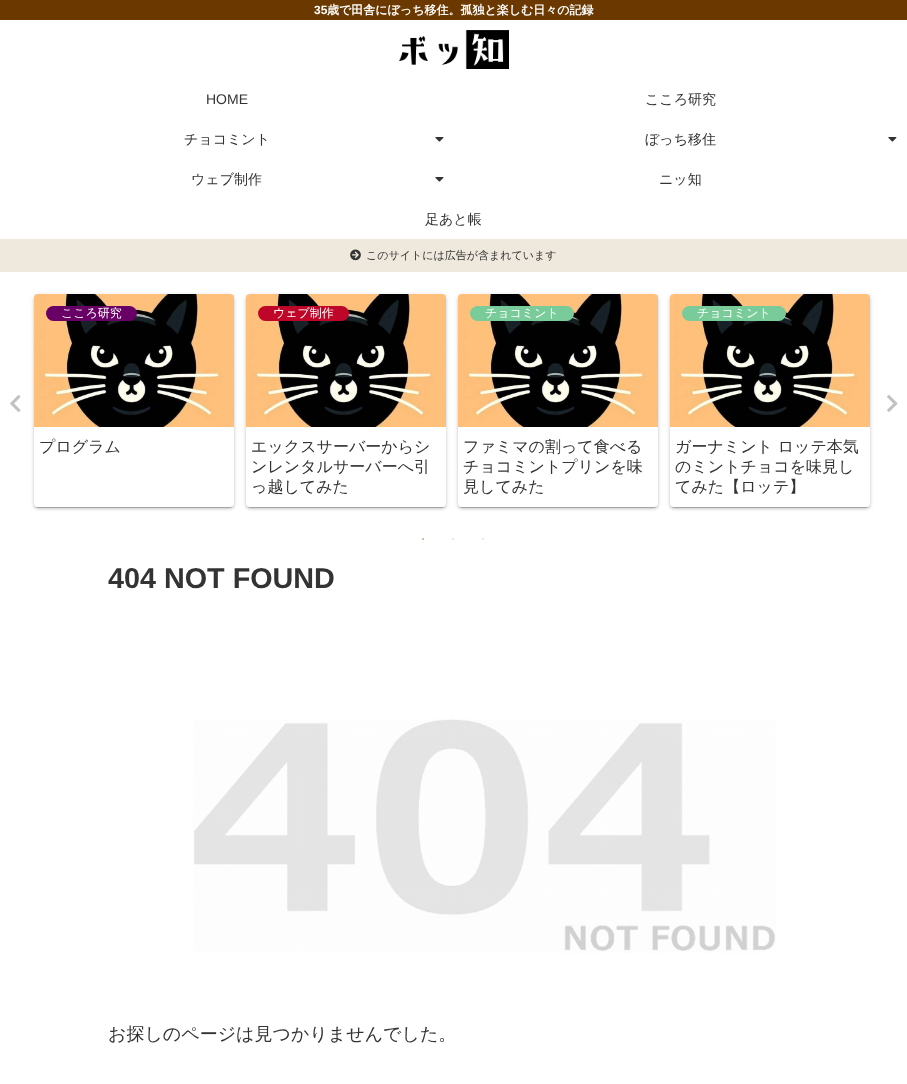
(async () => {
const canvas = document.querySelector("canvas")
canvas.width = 907
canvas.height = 1084
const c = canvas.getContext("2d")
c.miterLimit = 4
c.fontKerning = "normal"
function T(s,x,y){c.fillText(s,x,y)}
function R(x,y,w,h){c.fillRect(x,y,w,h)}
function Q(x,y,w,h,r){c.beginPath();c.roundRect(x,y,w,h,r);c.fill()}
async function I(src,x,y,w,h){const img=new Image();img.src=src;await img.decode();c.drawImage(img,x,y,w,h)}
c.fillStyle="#fff"
R(0,0,907,1084)
c.fillStyle="#6b3900"
R(0,0,907,20)
c.font="bold 12px Liberation Sans"
c.fillStyle="#fff"
T("35",314,14)
c.font="bold 12px WenQuanYi Zen Hei"
T("歳で田舎にぼっち移住。孤独と楽しむ日々の記録",327,14)
await I("1.png",399,30,110,39)
c.font="14px Liberation Sans"
c.fillStyle="#333"
T("HOME",206,104)
c.font="500 14px WenQuanYi Zen Hei"
T("こころ研究",645,104)
T("チョコミント",184,144)
await I("2.png",435,137,9,5)
T("ぼっち移住",645,144)
await I("2.png",888,137,9,5)
T("ウェブ制作",191,184)
await I("2.png",435,177,9,5)
T("ニッ知",659,184)
T("足あと帳",425,224)
c.fillStyle="#efe9dd"
R(0,239,907,33)
await I("3.png",350,249,11,12)
c.font="500 11px WenQuanYi Zen Hei"
c.fillStyle="#333"
T("このサイトには広告が含まれています",366,259)
await I("4.png",10,395,11,17)
c.fillStyle="#0000001f"
c.filter="blur(2.5px)"
c.beginPath()
c.roundRect(34,295,200,213,4)
c.fill()
c.filter="none"
c.fillStyle="#00000024"
c.filter="blur(1px)"
c.beginPath()
c.roundRect(34,296,200,213,4)
c.fill()
c.filter="none"
c.fillStyle="#00000033"
c.filter="blur(0.5px)"
c.beginPath()
c.roundRect(36,299,196,209,2)
c.fill()
c.filter="none"
c.fillStyle="#fff"
Q(34,294,200,213,4)
await I("5.png",34,294,200,133)
c.fillStyle="#680066"
Q(46,306,91,15,7.5)
c.font="500 12px WenQuanYi Zen Hei"
c.fillStyle="#fff"
T("こころ研究",61,317)
c.font="500 16px WenQuanYi Zen Hei"
c.fillStyle="#333"
T("プログラム",39,452)
c.fillStyle="#0000001f"
c.filter="blur(2.5px)"
c.beginPath()
c.roundRect(246,295,200,213,4)
c.fill()
c.filter="none"
c.fillStyle="#00000024"
c.filter="blur(1px)"
c.beginPath()
c.roundRect(246,296,200,213,4)
c.fill()
c.filter="none"
c.fillStyle="#00000033"
c.filter="blur(0.5px)"
c.beginPath()
c.roundRect(248,299,196,209,2)
c.fill()
c.filter="none"
c.fillStyle="#fff"
Q(246,294,200,213,4)
await I("6.png",246,294,200,133)
c.fillStyle="#bf0528"
Q(258,306,91,15,7.5)
c.font="500 12px WenQuanYi Zen Hei"
c.fillStyle="#fff"
T("ウェブ制作",273,317)
c.font="500 16px WenQuanYi Zen Hei"
c.fillStyle="#333"
T("エックスサーバーからシ",251,452)
T("ンレンタルサーバーへ引",251,472)
T("っ越してみた",251,492)
c.fillStyle="#0000001f"
c.filter="blur(2.5px)"
c.beginPath()
c.roundRect(458,295,200,213,4)
c.fill()
c.filter="none"
c.fillStyle="#00000024"
c.filter="blur(1px)"
c.beginPath()
c.roundRect(458,296,200,213,4)
c.fill()
c.filter="none"
c.fillStyle="#00000033"
c.filter="blur(0.5px)"
c.beginPath()
c.roundRect(460,299,196,209,2)
c.fill()
c.filter="none"
c.fillStyle="#fff"
Q(458,294,200,213,4)
await I("7.png",458,294,200,133)
c.fillStyle="#79cc9a"
Q(470,306,104,15,7.5)
c.font="500 12px WenQuanYi Zen Hei"
c.fillStyle="#fff"
T("チョコミント",485,317)
c.font="500 16px WenQuanYi Zen Hei"
c.fillStyle="#333"
T("ファミマの割って食べる",463,452)
T("チョコミントプリンを味",463,472)
T("見してみた",463,492)
c.fillStyle="#0000001f"
c.filter="blur(2.5px)"
c.beginPath()
c.roundRect(670,295,200,213,4)
c.fill()
c.filter="none"
c.fillStyle="#00000024"
c.filter="blur(1px)"
c.beginPath()
c.roundRect(670,296,200,213,4)
c.fill()
c.filter="none"
c.fillStyle="#00000033"
c.filter="blur(0.5px)"
c.beginPath()
c.roundRect(672,299,196,209,2)
c.fill()
c.filter="none"
c.fillStyle="#fff"
Q(670,294,200,213,4)
await I("8.png",670,294,200,133)
c.fillStyle="#79cc9a"
Q(682,306,104,15,7.5)
c.font="500 12px WenQuanYi Zen Hei"
c.fillStyle="#fff"
T("チョコミント",697,317)
c.font="500 16px WenQuanYi Zen Hei"
c.fillStyle="#333"
T("ガーナミント ロッテ本気",675,452)
T("のミントチョコを味見し",675,472)
T("てみた【ロッテ】",675,492)
await I("9.png",887,395,11,17)
c.font="6px Liberation Serif"
c.fillStyle="#906b40"
T("•",422,541)
c.fillStyle="#dacebf"
T("•",452,541)
T("•",482,541)
c.font="bold 28.75px Liberation Sans"
c.fillStyle="#333"
T("404 NOT FOUND",108,588)
await I("10.png",193,719,583,234)
c.font="500 18px WenQuanYi Zen Hei"
T("お探しのページは見つかりませんでした。",108,1040)
})()
